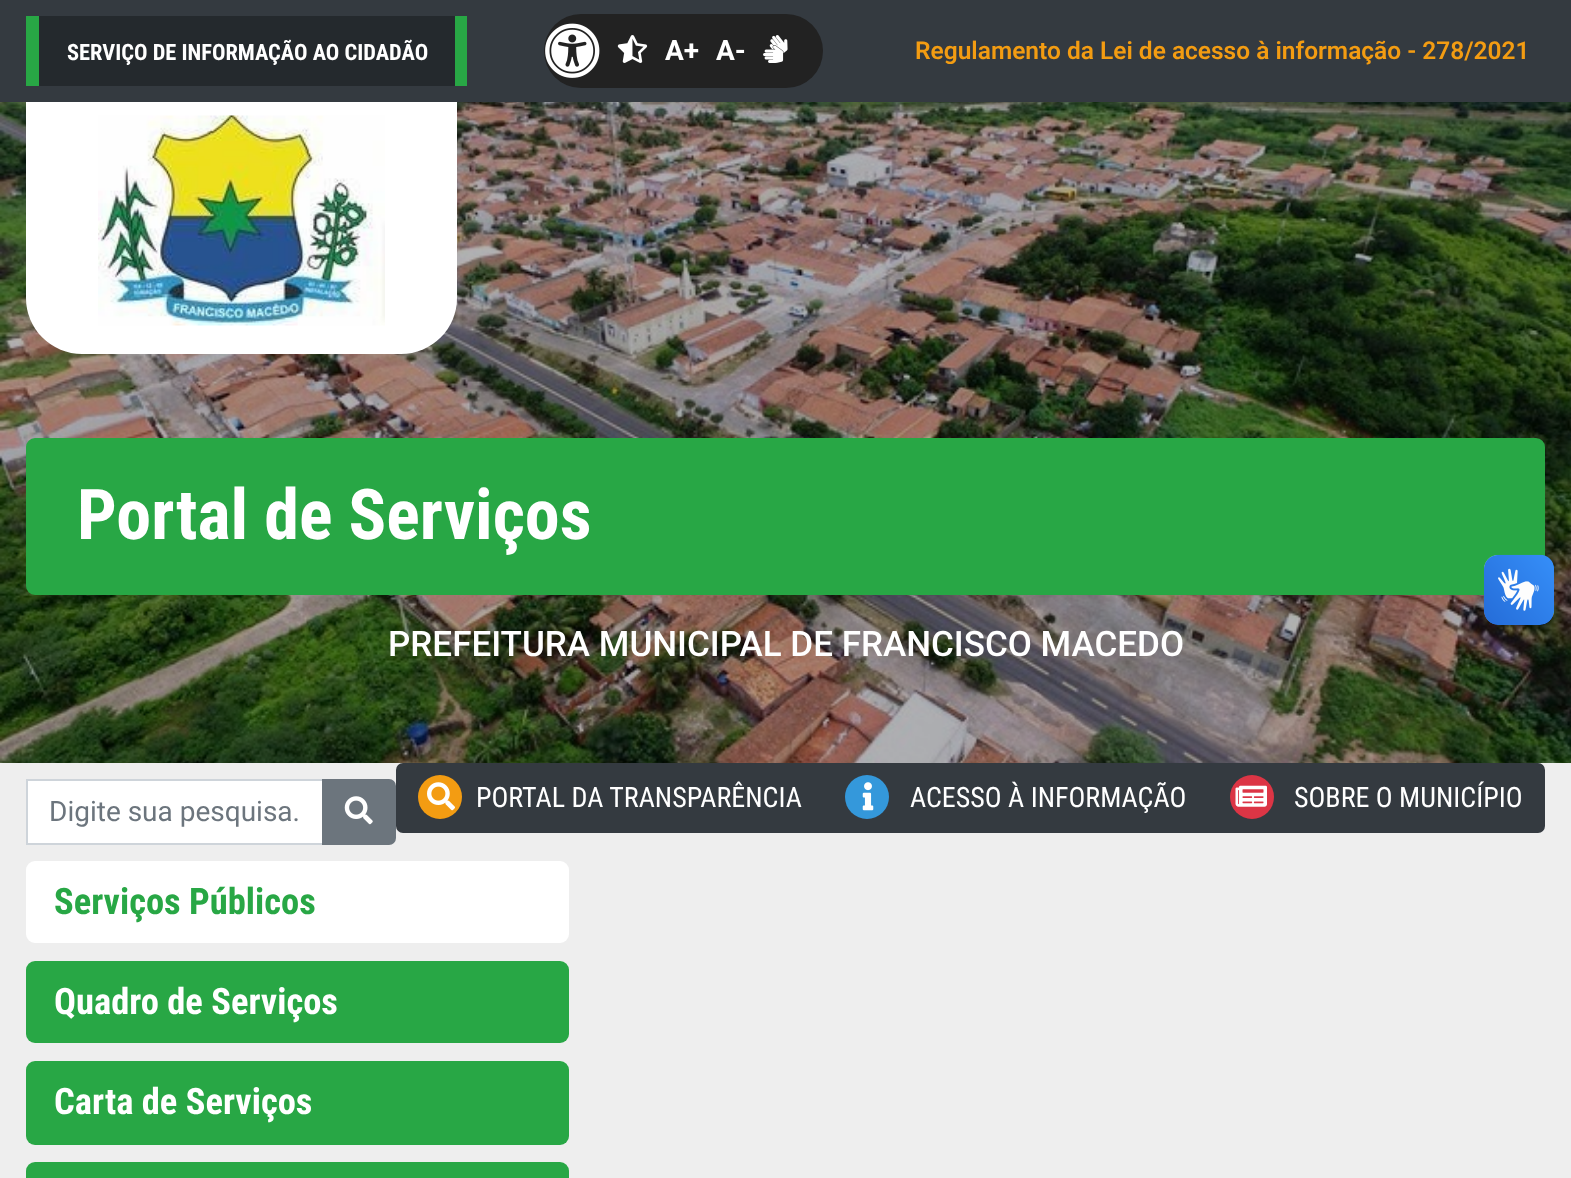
(async () => {
const canvas = document.querySelector("canvas")
canvas.width = 1571
canvas.height = 1178
const c = canvas.getContext("2d")
c.miterLimit = 4
c.fontKerning = "normal"
function T(s,x,y){c.fillText(s,x,y)}
function R(x,y,w,h){c.fillRect(x,y,w,h)}
function Q(x,y,w,h,r){c.beginPath();c.roundRect(x,y,w,h,r);c.fill()}
async function I(src,x,y,w,h){const img=new Image();img.src=src;await img.decode();c.drawImage(img,x,y,w,h)}
c.fillStyle="#eee"
R(0,0,1571,1178)
await I("1.png",0,102,1571,661)
c.fillStyle="#343a40"
R(0,0,1571,102)
c.fillStyle="#24292d"
R(39,16,416,70)
c.fillStyle="#28a745"
R(455,16,12,70)
R(26,16,13,70)
c.font="bold 22.4px Roboto Condensed"
c.fillStyle="#fff"
T("SERVIÇO DE INFORMAÇÃO AO CIDADÃO",67,60)
c.fillStyle="#222"
Q(544,14,279,74,37)
await I("2.png",545,23,55,55)
await I("3.png",617,35,31,28)
c.font="bold 28px Roboto"
c.fillStyle="#fff"
T("A+",665,60)
T("A-",716,60)
await I("4.png",763,35,25,28)
c.font="600 24.5px Roboto"
c.fillStyle="#f39c12"
T("Regulamento da Lei de acesso à informação - 278/2021",915,59)
c.fillStyle="#0000004d"
R(0,102,1571,661)
c.fillStyle="#fff"
c.beginPath()
c.roundRect(26,102,431,252,[0,0,56,56])
c.fill()
await I("5.png",98,115,287,211)
c.fillStyle="#28a745"
c.beginPath()
c.roundRect(30.5,442.5,1510,148,4.5)
c.fill()
c.strokeStyle="#28a745"
c.lineWidth=9
c.stroke()
c.font="bold 70px Roboto Condensed"
c.fillStyle="#fff"
T("Portal de Serviços",77,539)
c.font="500 35px Roboto"
T("PREFEITURA MUNICIPAL DE FRANCISCO MACEDO",388,656)
await I("6.png",1484,554,70,71)
await I("7.png",1484,555,70,70)
c.beginPath()
c.rect(27,780,296,64)
c.fill()
c.strokeStyle="#ced4da"
c.lineWidth=2
c.stroke()
c.font="28px Roboto"
c.fillStyle="#6c757d"
T("Digite sua pesquisa.",49,821)
c.beginPath()
c.roundRect(323,780,72,64,[0,6,6,0])
c.fill()
c.strokeStyle="#6c757d"
c.stroke()
await I("8.png",344,796,29,29)
c.fillStyle="#343a40"
c.beginPath()
c.roundRect(397,764,426,68,[6,0,0,6])
c.fill()
c.strokeStyle="#343a40"
c.stroke()
c.fillStyle="#f39c12"
c.beginPath()
c.arc(440,797,22,0,7)
c.fill()
await I("9.png",427,782,28,29)
c.font="28px Roboto Condensed"
c.fillStyle="#fff"
T("PORTAL DA TRANSPARÊNCIA",476,807)
c.fillStyle="#343a40"
R(824,763,384,70)
c.fillStyle="#3498db"
c.beginPath()
c.arc(867,797,22,0,7)
c.fill()
await I("10.png",862,782,12,29)
c.fillStyle="#fff"
T("ACESSO À INFORMAÇÃO",910,807)
c.fillStyle="#343a40"
c.beginPath()
c.roundRect(1209,764,335,68,[0,6,6,0])
c.fill()
c.stroke()
c.fillStyle="#dc3545"
c.beginPath()
c.arc(1252,797,22,0,7)
c.fill()
await I("11.png",1235,785,32,22)
c.fillStyle="#fff"
T("SOBRE O MUNICÍPIO",1294,807)
Q(26,861,543,82,9)
c.font="bold 36.5px Roboto Condensed"
c.fillStyle="#28a745"
T("Serviços Públicos",54,914)
Q(26,961,543,82,9)
c.fillStyle="#fff"
T("Quadro de Serviços",54,1014)
c.fillStyle="#28a745"
Q(26,1061,543,84,9)
c.fillStyle="#fff"
T("Carta de Serviços",54,1114)
c.fillStyle="#28a745"
Q(26,1162,543,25,9)
})()
